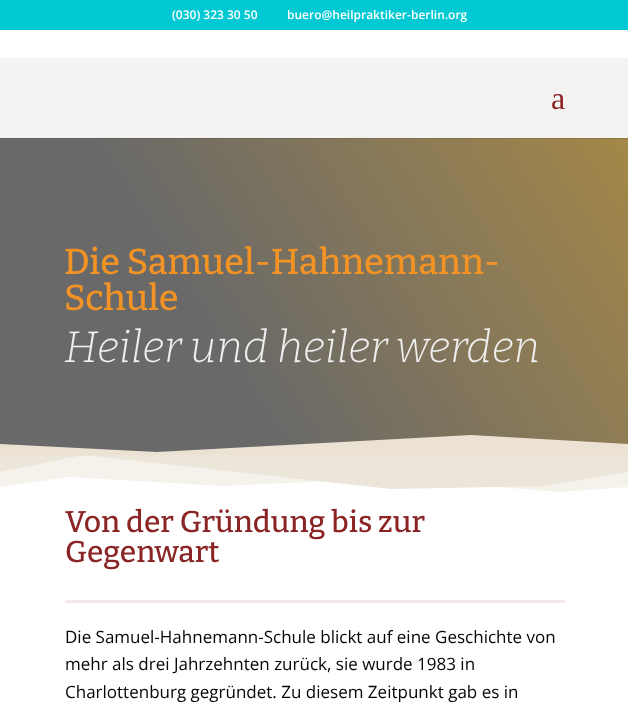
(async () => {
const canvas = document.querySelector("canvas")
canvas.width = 628
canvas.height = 713
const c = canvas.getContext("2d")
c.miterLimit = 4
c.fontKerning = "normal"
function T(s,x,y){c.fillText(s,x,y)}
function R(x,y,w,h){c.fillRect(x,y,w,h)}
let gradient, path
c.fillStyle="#fff"
R(0,0,628,713)
c.fillStyle="#00c9d3"
R(0,0,628,30)
c.font="600 12px Open Sans"
c.fillStyle="#fff"
T("(030) 323 30 50",172,19)
T("buero@heilpraktiker-berlin.org",287,19)
c.fillStyle="#f4f3f1"
R(0,58,628,80)
c.font="32px Liberation Serif"
c.fillStyle="#8b2525"
T("a",551,109)
gradient = c.createLinearGradient(3.7,462,624,74)
gradient.addColorStop(.33,"#696969")
gradient.addColorStop(1,"#a88946")
c.fillStyle = gradient
R(0,139,628,313)
gradient = c.createLinearGradient(3.7,462,624,74)
gradient.addColorStop(.33,"#5f5f5f")
gradient.addColorStop(1,"#977b3f")
c.fillStyle = gradient
R(0,138,628,1)
c.font="500 36px Bitter"
c.fillStyle="#f39325"
T("Die Samuel-Hahnemann-",64,274)
T("Schule",64,310)
c.font="italic 300 44px Bitter"
c.fillStyle="#efefef"
T("Heiler und heiler werden",64,362)
c.fillStyle="#ebe2d4"
path = new Path2D("M628 444l-157-9l-314 17l-157-8v12h628z")
c.fill(path)
c.fillStyle="#ece5d980"
path = new Path2D("M0 487l69-10l154 9l168-8l168 14l69-5v-32h-628z")
c.fill(path)
c.fillStyle="#ece5d9"
path = new Path2D("M0 455v17l83-17l308 34l154-3l83-14v-17z")
c.fill(path)
c.font="500 30px Bitter"
c.fillStyle="#8b2525"
T("Von der Gründung bis zur",65,532)
T("Gegenwart",65,562)
c.fillStyle="#f3e9e9"
R(65,600,500,3)
c.font="17px Open Sans"
c.fillStyle="#050505"
T("Die Samuel-Hahnemann-Schule blickt auf eine Geschichte von",65,643)
T("mehr als drei Jahrzehnten zurück, sie wurde 1983 in",65,670)
T("Charlottenburg gegründet. Zu diesem Zeitpunkt gab es in",65,698)
})()
